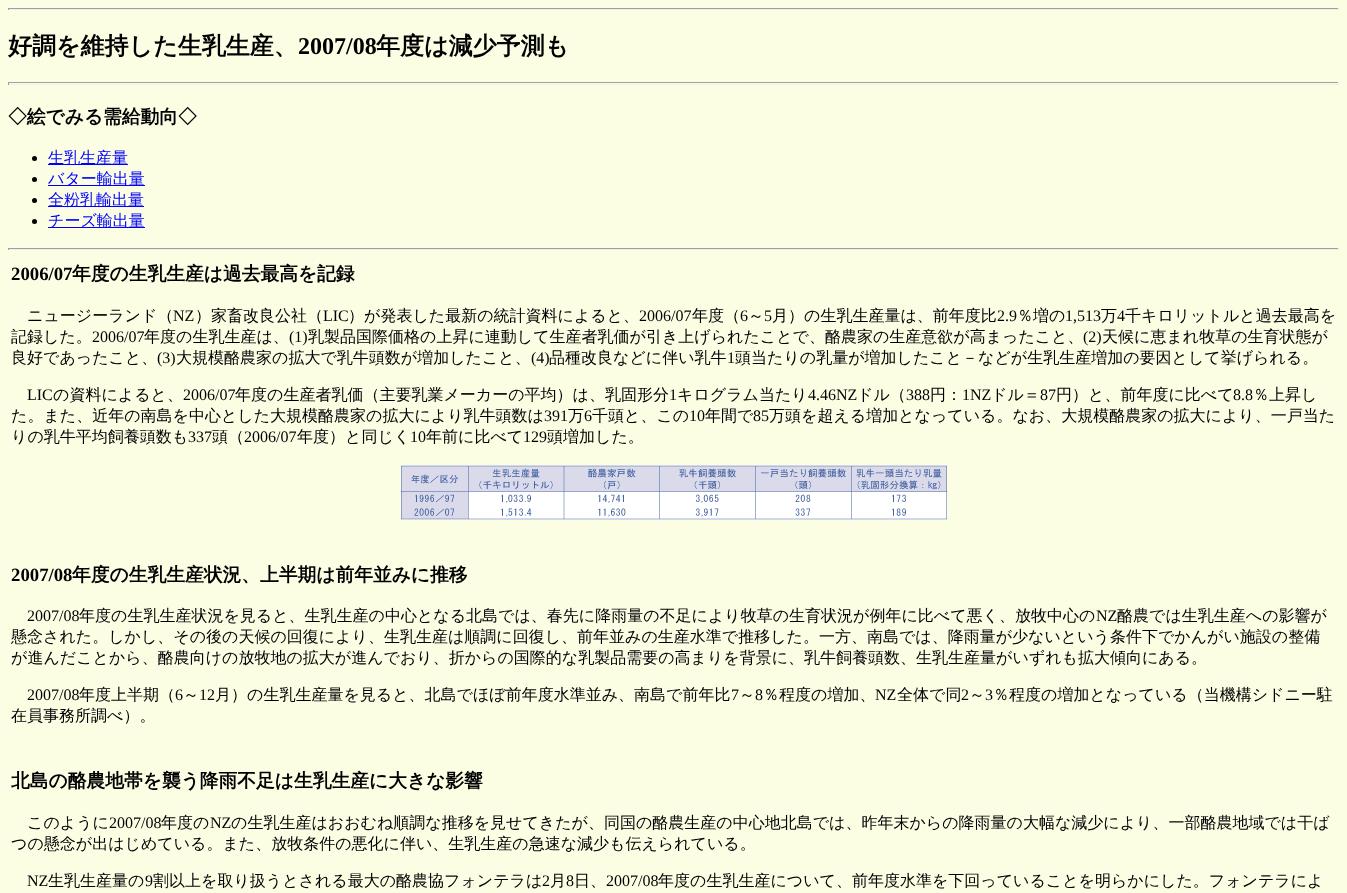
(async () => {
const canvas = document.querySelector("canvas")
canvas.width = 1347
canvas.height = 893
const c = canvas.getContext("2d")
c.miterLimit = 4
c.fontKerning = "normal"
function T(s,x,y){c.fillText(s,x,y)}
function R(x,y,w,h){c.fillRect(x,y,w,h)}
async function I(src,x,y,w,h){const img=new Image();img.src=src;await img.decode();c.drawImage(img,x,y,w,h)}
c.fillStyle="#fcfee4"
R(0,0,1347,893)
c.fillStyle="#9f9f9f"
R(8,8,1331,1)
c.fillStyle="#eee"
R(1338,8,1,2)
R(8,9,1331,1)
c.fillStyle="#9f9f9f"
R(8,8,1,2)
c.font="bold 24px WenQuanYi Zen Hei"
c.fillStyle="#000"
T("好調を維持した生乳生産、",8,54)
c.font="bold 24px Liberation Serif"
T("2007/08",298,54)
c.font="bold 24px WenQuanYi Zen Hei"
T("年度は減少予測も",376,54)
c.fillStyle="#9f9f9f"
R(8,82,1331,1)
c.fillStyle="#eee"
R(1338,82,1,3)
R(8,84,1331,1)
c.fillStyle="#9f9f9f"
R(8,82,1,3)
c.font="bold 18.75px WenQuanYi Zen Hei"
c.fillStyle="#000"
T("◇絵でみる需給動向◇",8,123)
c.beginPath()
c.arc(34.5,158.5,2.5,0,7)
c.fill()
c.fillStyle="#00f"
R(48,164,80,1)
c.font="500 16px WenQuanYi Zen Hei"
T("生乳生産量",48,163)
c.fillStyle="#000"
c.beginPath()
c.arc(34.5,179.5,2.5,0,7)
c.fill()
c.fillStyle="#00f"
R(48,185,97,1)
T("バター輸出量",48,184)
c.fillStyle="#000"
c.beginPath()
c.arc(34.5,200.5,2.5,0,7)
c.fill()
c.fillStyle="#00f"
R(48,206,96,1)
T("全粉乳輸出量",48,205)
c.fillStyle="#000"
c.beginPath()
c.arc(34.5,221.5,2.5,0,7)
c.fill()
c.fillStyle="#00f"
R(48,227,97,1)
T("チーズ輸出量",48,226)
c.fillStyle="#9f9f9f"
R(8,248,1331,1)
c.fillStyle="#eee"
R(1338,248,1,2)
R(8,249,1331,1)
c.fillStyle="#9f9f9f"
R(8,248,1,2)
c.font="bold 18.75px Liberation Serif"
c.fillStyle="#000"
T("2006/07",11,280)
c.font="bold 18.75px WenQuanYi Zen Hei"
T("年度の生乳生産は過去最高を記録",72,280)
c.font="500 16px WenQuanYi Zen Hei"
T("ニュージーランド（",27,321)
c.font="16px Liberation Serif"
T("NZ",173,321)
c.font="500 16px WenQuanYi Zen Hei"
T("）家畜改良公社（",195,321)
c.font="16px Liberation Serif"
T("LIC",323,321)
c.font="500 16px WenQuanYi Zen Hei"
T("）が発表した最新の統計資料によると、",348,321)
c.font="16px Liberation Serif"
T("2006/07",639,321)
c.font="500 16px WenQuanYi Zen Hei"
T("年度（",692,321)
c.font="16px Liberation Serif"
T("6",740,321)
c.font="500 16px WenQuanYi Zen Hei"
T("～",748,321)
c.font="16px Liberation Serif"
T("5",764,321)
c.font="500 16px WenQuanYi Zen Hei"
T("月）の生乳生産量は、前年度比",772,321)
c.font="16px Liberation Serif"
T("2.9",997,321)
c.font="500 16px WenQuanYi Zen Hei"
T("％増の",1017,321)
c.font="16px Liberation Serif"
T("1,513",1065,321)
c.font="500 16px WenQuanYi Zen Hei"
T("万",1101,321)
c.font="16px Liberation Serif"
T("4",1117,321)
c.font="500 16px WenQuanYi Zen Hei"
T("千キロリットルと過去最高を",1125,321)
T("記録した。",11,342)
c.font="16px Liberation Serif"
T("2006/07",92,342)
c.font="500 16px WenQuanYi Zen Hei"
T("年度の生乳生産は、",144,342)
c.font="16px Liberation Serif"
T("(1)",289,342)
c.font="500 16px WenQuanYi Zen Hei"
T("乳製品国際価格の上昇に連動して生産者乳価が引き上げられたことで、酪農家の生産意欲が高まったこと、",308,342)
c.font="16px Liberation Serif"
T("(2)",1083,342)
c.font="500 16px WenQuanYi Zen Hei"
T("天候に恵まれ牧草の生育状態が",1102,342)
T("良好であったこと、",11,363)
c.font="16px Liberation Serif"
T("(3)",157,363)
c.font="500 16px WenQuanYi Zen Hei"
T("大規模酪農家の拡大で乳牛頭数が増加したこと、",176,363)
c.font="16px Liberation Serif"
T("(4)",531,363)
c.font="500 16px WenQuanYi Zen Hei"
T("品種改良などに伴い乳牛",549,363)
c.font="16px Liberation Serif"
T("1",727,363)
c.font="500 16px WenQuanYi Zen Hei"
T("頭当たりの乳量が増加したこと－などが生乳生産増加の要因として挙げられる。",735,363)
c.font="16px Liberation Serif"
T("LIC",27,400)
c.font="500 16px WenQuanYi Zen Hei"
T("の資料によると、",53,400)
c.font="16px Liberation Serif"
T("2006/07",183,400)
c.font="500 16px WenQuanYi Zen Hei"
T("年度の生産者乳価（主要乳業メーカーの平均）は、乳固形分",235,400)
c.font="16px Liberation Serif"
T("1",669,400)
c.font="500 16px WenQuanYi Zen Hei"
T("キログラム当たり",677,400)
c.font="16px Liberation Serif"
T("4.46NZ",808,400)
c.font="500 16px WenQuanYi Zen Hei"
T("ドル（",857,400)
c.font="16px Liberation Serif"
T("388",906,400)
c.font="500 16px WenQuanYi Zen Hei"
T("円：",930,400)
c.font="16px Liberation Serif"
T("1NZ",962,400)
c.font="500 16px WenQuanYi Zen Hei"
T("ドル＝",991,400)
c.font="16px Liberation Serif"
T("87",1040,400)
c.font="500 16px WenQuanYi Zen Hei"
T("円）と、前年度に比べて",1056,400)
c.font="16px Liberation Serif"
T("8.8",1233,400)
c.font="500 16px WenQuanYi Zen Hei"
T("％上昇し",1253,400)
T("た。また、近年の南島を中心とした大規模酪農家の拡大により乳牛頭数は",11,421)
c.font="16px Liberation Serif"
T("391",544,421)
c.font="500 16px WenQuanYi Zen Hei"
T("万",568,421)
c.font="16px Liberation Serif"
T("6",584,421)
c.font="500 16px WenQuanYi Zen Hei"
T("千頭と、この",592,421)
c.font="16px Liberation Serif"
T("10",689,421)
c.font="500 16px WenQuanYi Zen Hei"
T("年間で",705,421)
c.font="16px Liberation Serif"
T("85",753,421)
c.font="500 16px WenQuanYi Zen Hei"
T("万頭を超える増加となっている。なお、大規模酪農家の拡大により、一戸当た",769,421)
T("りの乳牛平均飼養頭数も",11,442)
c.font="16px Liberation Serif"
T("337",188,442)
c.font="500 16px WenQuanYi Zen Hei"
T("頭（",212,442)
c.font="16px Liberation Serif"
T("2006/07",244,442)
c.font="500 16px WenQuanYi Zen Hei"
T("年度）と同じく",297,442)
c.font="16px Liberation Serif"
T("10",410,442)
c.font="500 16px WenQuanYi Zen Hei"
T("年前に比べて",426,442)
c.font="16px Liberation Serif"
T("129",523,442)
c.font="500 16px WenQuanYi Zen Hei"
T("頭増加した。",547,442)
await I("1.png",400,465,548,55)
c.font="bold 18.75px Liberation Serif"
T("2007/08",11,581)
c.font="bold 18.75px WenQuanYi Zen Hei"
T("年度の生乳生産状況、上半期は前年並みに推移",72,581)
c.font="16px Liberation Serif"
T("2007/08",27,621)
c.font="500 16px WenQuanYi Zen Hei"
T("年度の生乳生産状況を見ると、生乳生産の中心となる北島では、春先に降雨量の不足により牧草の生育状況が例年に比べて悪く、放牧中心の",79,621)
c.font="16px Liberation Serif"
T("NZ",1096,621)
c.font="500 16px WenQuanYi Zen Hei"
T("酪農では生乳生産への影響が",1117,621)
T("懸念された。しかし、その後の天候の回復により、生乳生産は順調に回復し、前年並みの生産水準で推移した。一方、南島では、降雨量が少ないという条件下でかんがい施設の整備",11,642)
T("が進んだことから、酪農向けの放牧地の拡大が進んでおり、折からの国際的な乳製品需要の高まりを背景に、乳牛飼養頭数、生乳生産量がいずれも拡大傾向にある。",11,663)
c.font="16px Liberation Serif"
T("2007/08",27,700)
c.font="500 16px WenQuanYi Zen Hei"
T("年度上半期（",79,700)
c.font="16px Liberation Serif"
T("6",175,700)
c.font="500 16px WenQuanYi Zen Hei"
T("～",183,700)
c.font="16px Liberation Serif"
T("12",199,700)
c.font="500 16px WenQuanYi Zen Hei"
T("月）の生乳生産量を見ると、北島でほぼ前年度水準並み、南島で前年比",215,700)
c.font="16px Liberation Serif"
T("7",731,700)
c.font="500 16px WenQuanYi Zen Hei"
T("～",739,700)
c.font="16px Liberation Serif"
T("8",755,700)
c.font="500 16px WenQuanYi Zen Hei"
T("％程度の増加、",763,700)
c.font="16px Liberation Serif"
T("NZ",875,700)
c.font="500 16px WenQuanYi Zen Hei"
T("全体で同",897,700)
c.font="16px Liberation Serif"
T("2",961,700)
c.font="500 16px WenQuanYi Zen Hei"
T("～",969,700)
c.font="16px Liberation Serif"
T("3",985,700)
c.font="500 16px WenQuanYi Zen Hei"
T("％程度の増加となっている（当機構シドニー駐",993,700)
T("在員事務所調べ）。",11,721)
c.font="bold 18.75px WenQuanYi Zen Hei"
T("北島の酪農地帯を襲う降雨不足は生乳生産に大きな影響",11,787)
c.font="500 16px WenQuanYi Zen Hei"
T("このように",27,828)
c.font="16px Liberation Serif"
T("2007/08",109,828)
c.font="500 16px WenQuanYi Zen Hei"
T("年度の",161,828)
c.font="16px Liberation Serif"
T("NZ",210,828)
c.font="500 16px WenQuanYi Zen Hei"
T("の生乳生産はおおむね順調な推移を見せてきたが、同国の酪農生産の中心地北島では、昨年末からの降雨量の大幅な減少により、一部酪農地域では干ば",231,828)
T("つの懸念が出はじめている。また、放牧条件の悪化に伴い、生乳生産の急速な減少も伝えられている。",11,849)
c.font="16px Liberation Serif"
T("NZ",27,886)
c.font="500 16px WenQuanYi Zen Hei"
T("生乳生産量の",48,886)
c.font="16px Liberation Serif"
T("9",145,886)
c.font="500 16px WenQuanYi Zen Hei"
T("割以上を取り扱うとされる最大の酪農協フォンテラは",153,886)
c.font="16px Liberation Serif"
T("2",542,886)
c.font="500 16px WenQuanYi Zen Hei"
T("月",550,886)
c.font="16px Liberation Serif"
T("8",566,886)
c.font="500 16px WenQuanYi Zen Hei"
T("日、",574,886)
c.font="16px Liberation Serif"
T("2007/08",606,886)
c.font="500 16px WenQuanYi Zen Hei"
T("年度の生乳生産について、前年度水準を下回っていることを明らかにした。フォンテラによ",658,886)
})()
